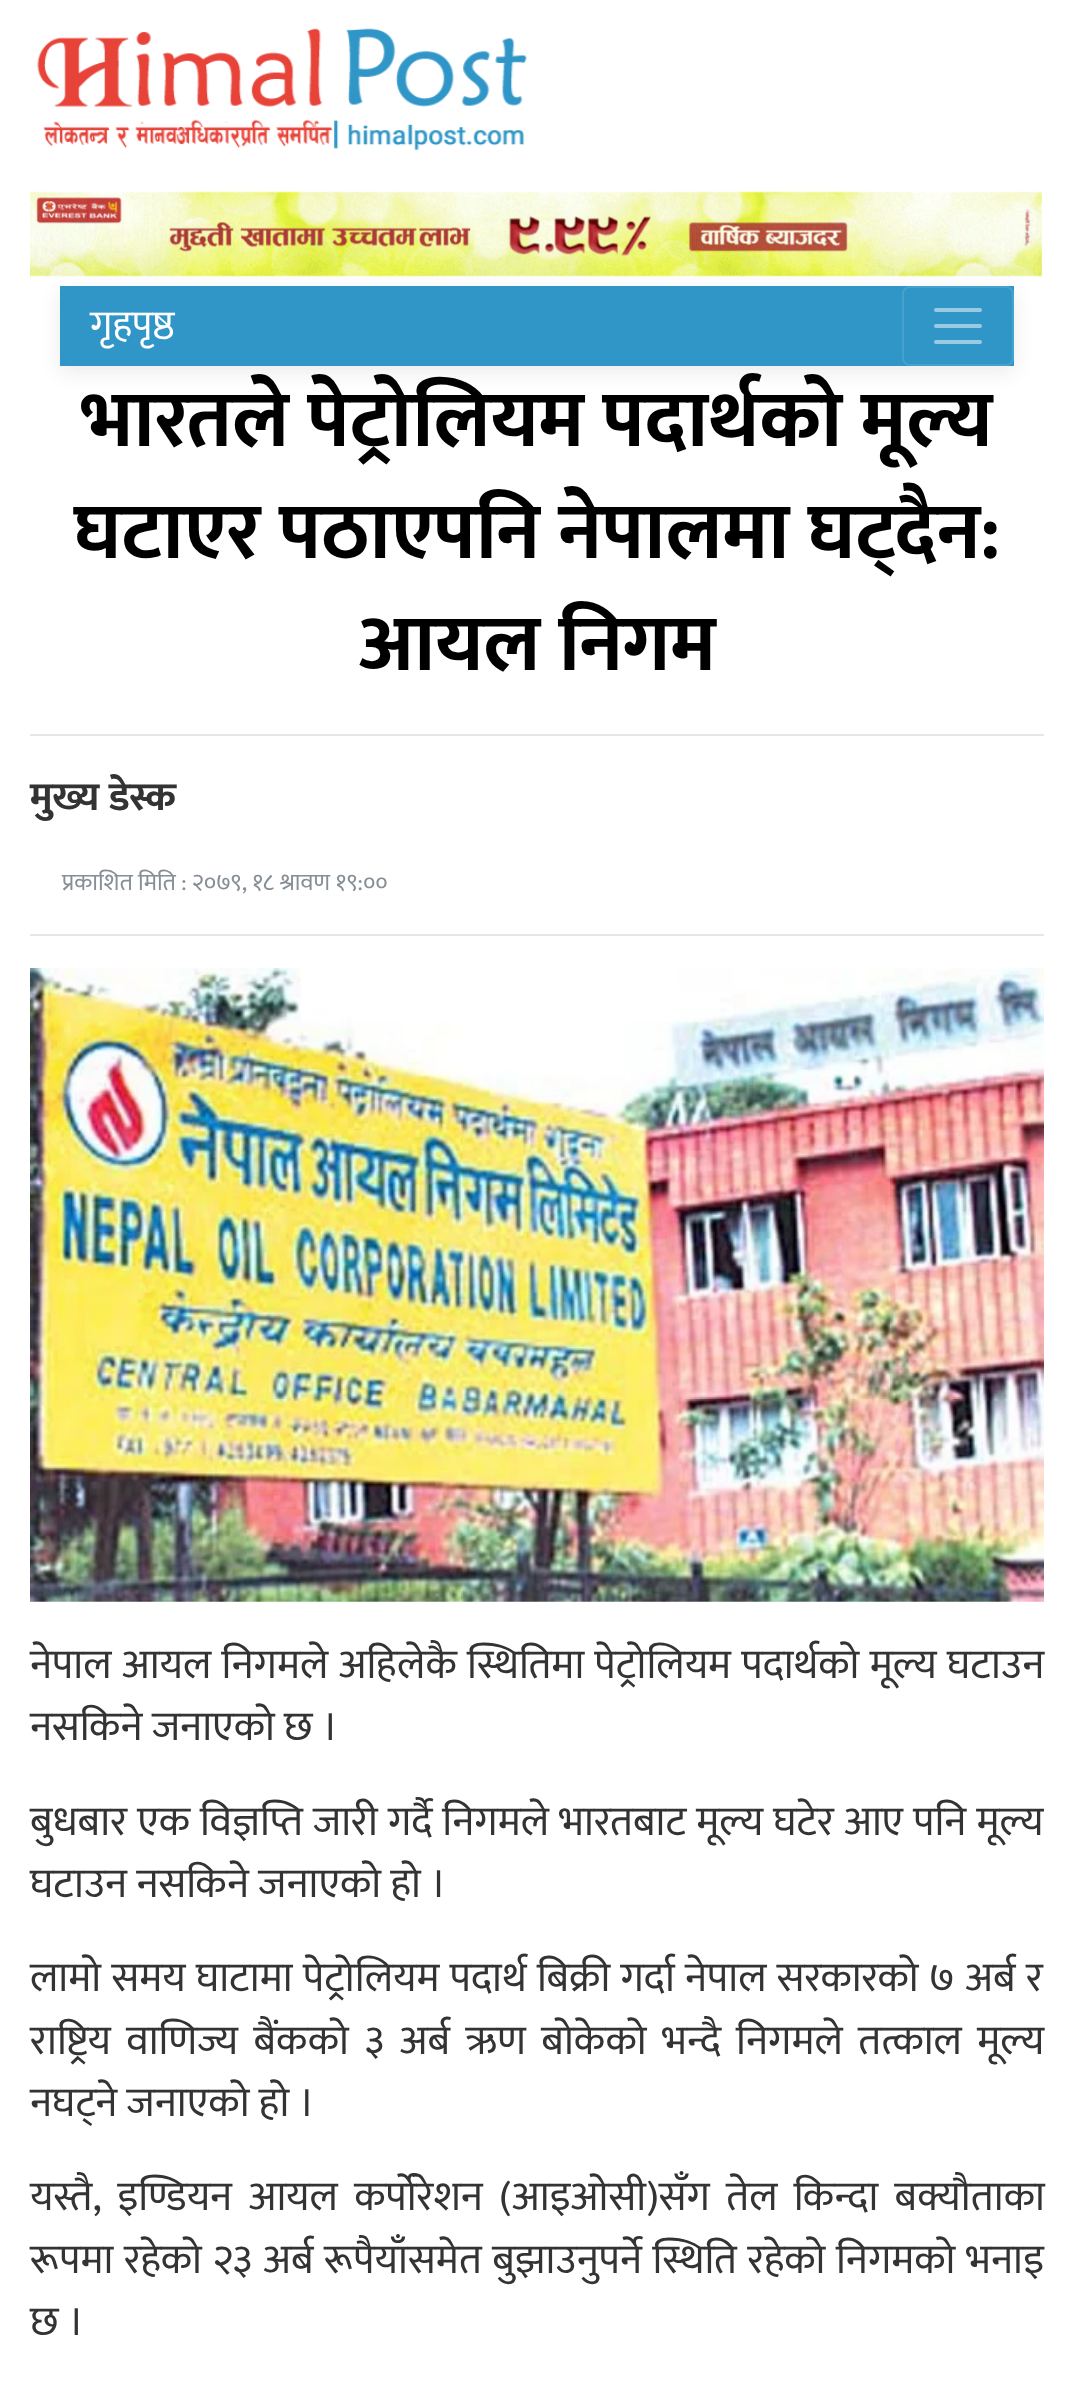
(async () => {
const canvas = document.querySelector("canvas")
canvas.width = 1073
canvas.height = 2401
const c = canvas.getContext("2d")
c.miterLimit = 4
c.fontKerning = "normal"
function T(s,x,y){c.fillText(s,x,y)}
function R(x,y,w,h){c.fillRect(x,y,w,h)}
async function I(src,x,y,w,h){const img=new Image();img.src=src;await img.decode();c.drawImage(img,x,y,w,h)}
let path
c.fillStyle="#fff"
R(0,0,1073,2401)
await I("1.png",37,28,490,123)
await I("2.png",30,191,1012,86)
c.fillStyle="#00000014"
c.filter="blur(10px)"
c.beginPath()
c.rect(60,292,954,80)
c.fill()
c.filter="none"
c.fillStyle="#3096c7"
R(60,286,954,80)
c.font="40px Mukta"
c.fillStyle="#fff"
T("गृहपृष्ठ",90,338)
c.beginPath()
c.roundRect(903,287,110,78,7)
c.strokeStyle="#45a1cd"
c.lineWidth=2
c.stroke()
path = new Path2D("M936 310h44m-44 16h44m-44 16h44")
c.strokeStyle="#98cbe3"
c.lineWidth=4
c.lineCap="round"
c.stroke(path)
c.font="bold 80px Mukta"
c.fillStyle="#000"
T("भारतले पेट्रोलियम पदार्थको मूल्य",81,446)
T("घटाएर पठाएपनि नेपालमा घट्दैन:",74,558)
T("आयल निगम",359,670)
c.fillStyle="#e6e6e6"
R(30,734,1014,2)
c.font="bold 40px Mukta"
c.fillStyle="#333"
T("मुख्य डेस्क",30,810)
c.font="24px Mukta"
c.fillStyle="#868e96"
T("प्रकाशित मिति : २०७९, १८ श्रावण १९:००",62,890)
c.fillStyle="#e6e6e6"
R(30,934,1014,2)
await I("3.png",30,968,1014,634)
c.wordSpacing="1px"
c.font="41.6px Mukta"
c.fillStyle="#333"
T("नेपाल आयल निगमले अहिलेकै स्थितिमा पेट्रोलियम पदार्थको मूल्य घटाउन",30,1678)
c.wordSpacing="0px"
T("नसकिने जनाएको छ ।",30,1740)
c.wordSpacing="0.75px"
T("बुधबार एक विज्ञप्ति जारी गर्दै निगमले भारतबाट मूल्य घटेर आए पनि मूल्य",30,1835)
c.wordSpacing="0px"
T("घटाउन नसकिने जनाएको हो ।",30,1897)
c.wordSpacing="1px"
T("लामो समय घाटामा पेट्रोलियम पदार्थ बिक्री गर्दा नेपाल सरकारको ७ अर्ब र",30,1991)
c.wordSpacing="6px"
T("राष्ट्रिय वाणिज्य बैंकको ३ अर्ब ऋण बोकेको भन्दै निगमले तत्काल मूल्य",30,2054)
c.wordSpacing="0px"
T("नघट्ने जनाएको हो ।",30,2116)
c.wordSpacing="7px"
T("यस्तै, इण्डियन आयल कर्पोरेशन (आइओसी)सँग तेल किन्दा बक्यौताका",30,2210)
c.wordSpacing="1.25px"
T("रूपमा रहेको २३ अर्ब रूपैयाँसमेत बुझाउनुपर्ने स्थिति रहेको निगमको भनाइ",30,2273)
c.wordSpacing="0px"
T("छ ।",30,2335)
})()
